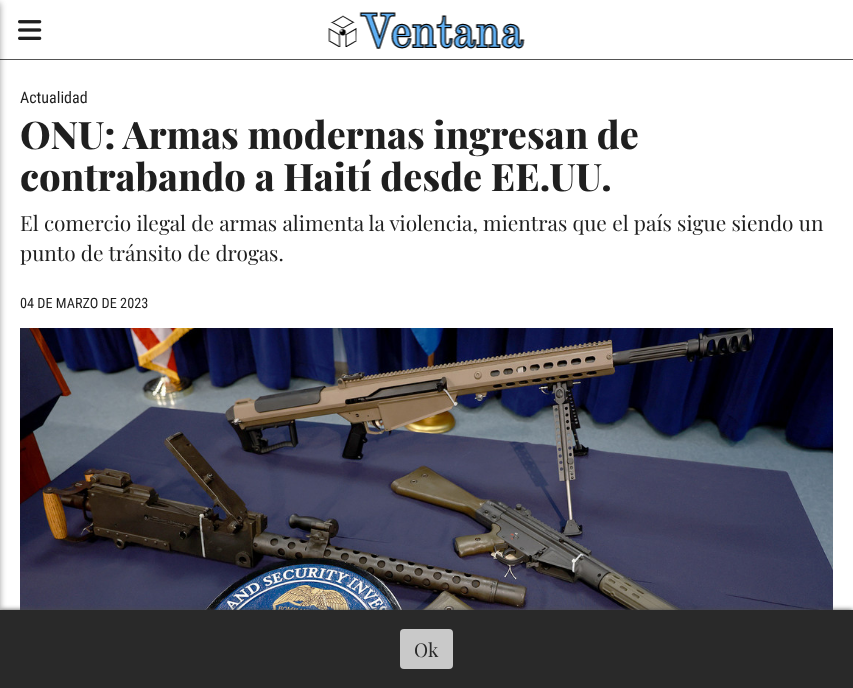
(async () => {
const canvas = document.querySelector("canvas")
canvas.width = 853
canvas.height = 688
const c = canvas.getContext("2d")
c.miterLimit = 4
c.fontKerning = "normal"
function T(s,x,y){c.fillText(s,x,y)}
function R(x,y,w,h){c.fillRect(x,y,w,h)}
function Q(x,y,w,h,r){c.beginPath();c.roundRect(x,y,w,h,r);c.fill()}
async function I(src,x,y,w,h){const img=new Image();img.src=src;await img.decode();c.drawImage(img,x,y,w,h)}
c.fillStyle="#fff"
R(0,0,853,688)
c.fillStyle="#545454"
R(0,59,853,1)
c.fillStyle="#0000003b"
c.filter="blur(3px)"
c.beginPath()
c.rect(-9,3,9,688)
c.fill()
c.filter="none"
c.fillStyle="#00000029"
c.filter="blur(3px)"
c.beginPath()
c.rect(-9,3,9,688)
c.fill()
c.filter="none"
await I("1.png",18,20,24,20)
await I("2.png",328,12,197,37)
c.font="16px Roboto Condensed"
c.fillStyle="#1f1f1f"
T("Actualidad",20,103)
c.font="800 38px Playfair Display"
T("ONU: Armas modernas ingresan de",20,149)
T("contrabando a Haití desde EE.UU.",20,191)
c.font="20.9px Playfair Display"
T("El comercio ilegal de armas alimenta la violencia, mientras que el país sigue siendo un",20,231)
T("punto de tránsito de drogas.",20,261)
c.font="14.25px Roboto Condensed"
T("04 DE MARZO DE 2023",20,308)
await I("3.png",20,328,813,282)
c.fillStyle="#494949"
c.filter="blur(2.5px)"
c.beginPath()
c.rect(0,610,853,78)
c.fill()
c.filter="none"
c.fillStyle="#292929"
R(0,610,853,78)
c.fillStyle="#c9c9c9"
Q(400,629,53,40,4)
c.font="19px Playfair Display"
c.fillStyle="#292929"
T("Ok",414,657)
})()
